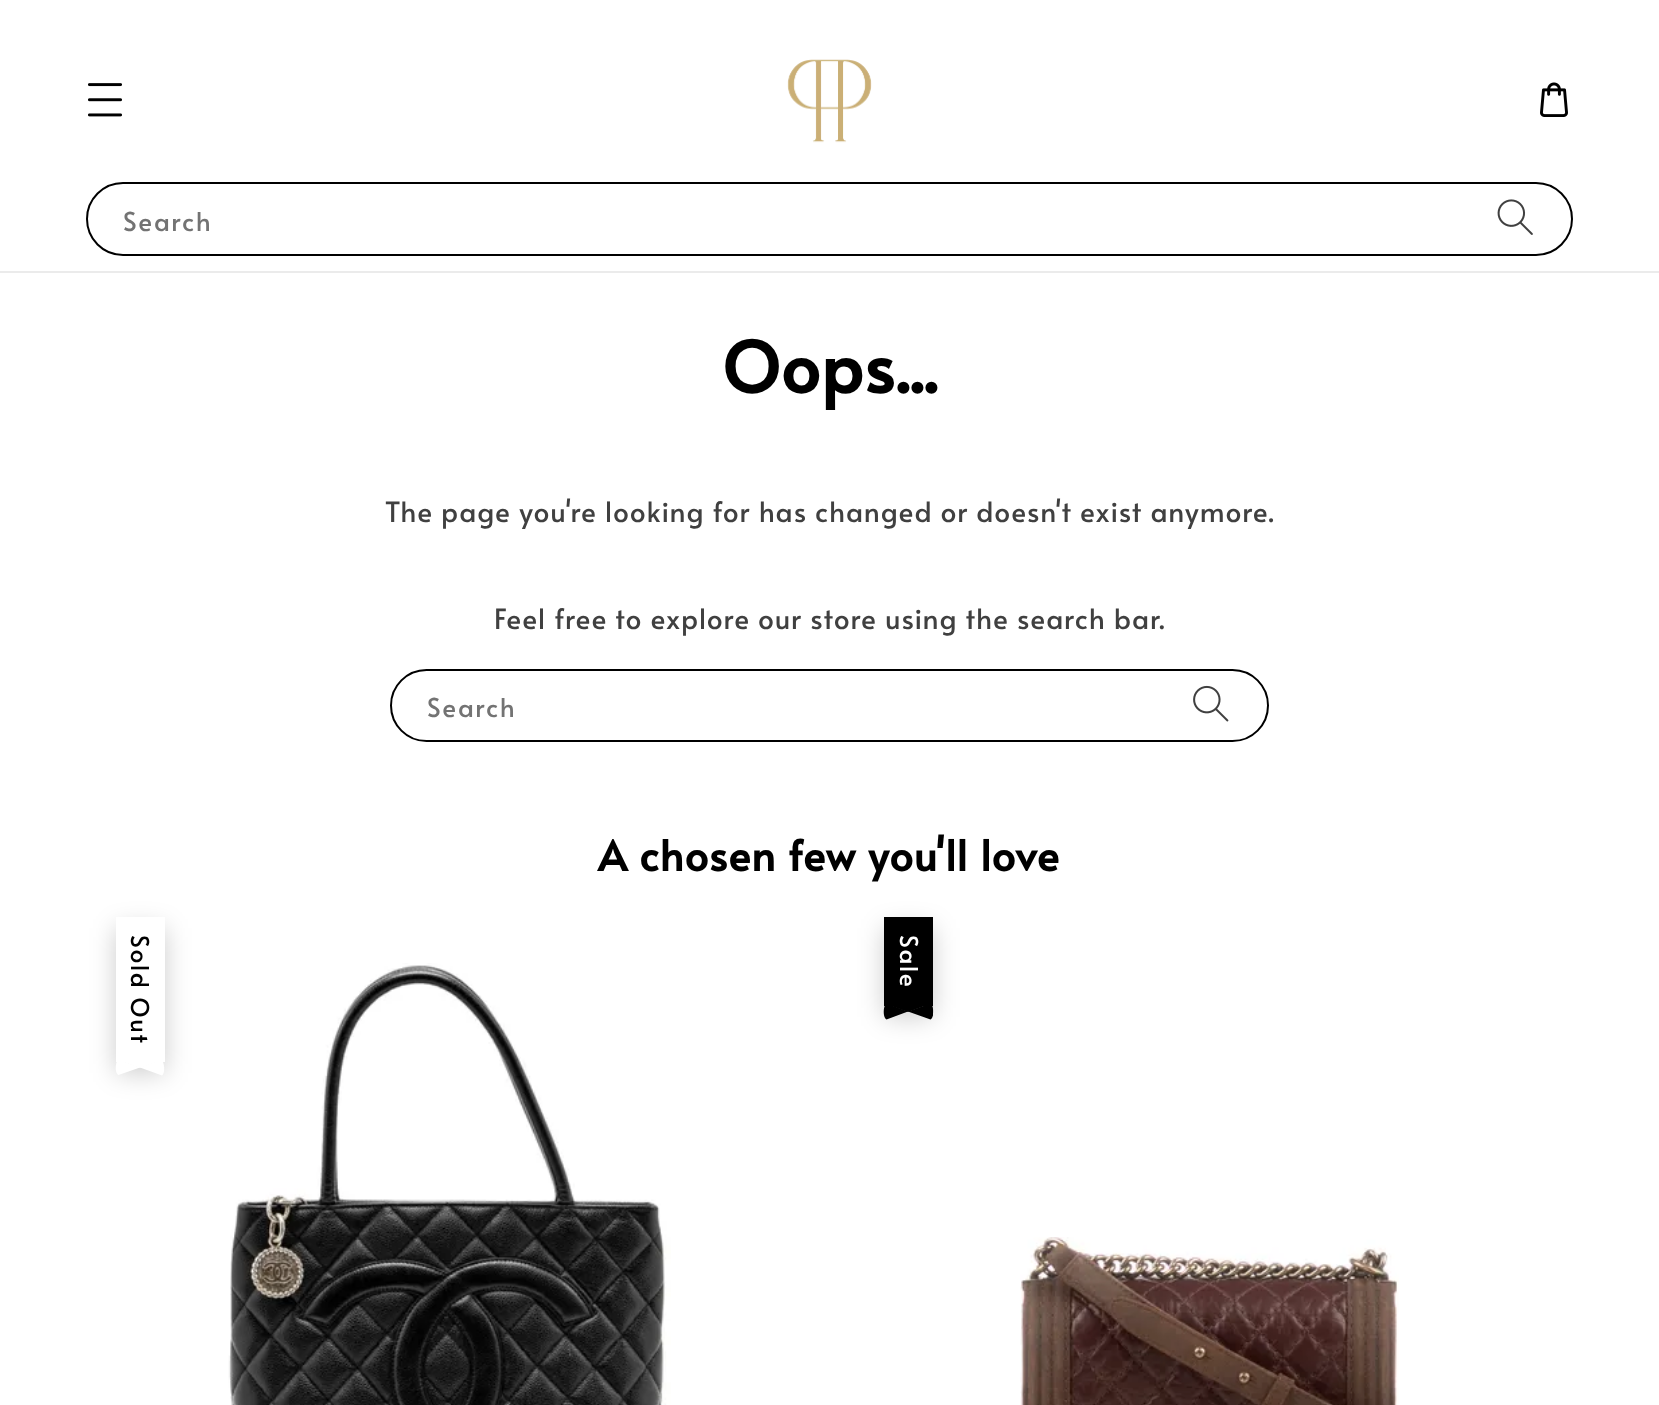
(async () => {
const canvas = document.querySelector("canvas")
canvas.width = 1659
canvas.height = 1405
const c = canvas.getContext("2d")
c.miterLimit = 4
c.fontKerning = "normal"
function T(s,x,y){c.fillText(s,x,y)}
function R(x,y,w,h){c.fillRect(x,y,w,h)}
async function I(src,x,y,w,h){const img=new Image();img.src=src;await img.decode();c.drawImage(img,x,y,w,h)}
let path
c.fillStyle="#fff"
R(0,0,1659,1405)
c.fillStyle="#ebebeb"
R(0,271,1659,2)
await I("1.png",88,83,34,34)
await I("2.png",787,59,85,84)
await I("3.png",1540,82,28,35)
c.beginPath()
c.roundRect(87,183,1485,72,36)
c.strokeStyle="#000"
c.lineWidth=2
c.stroke()
c.letterSpacing="1.75px"
c.font="26px Alata"
c.fillStyle="#737373"
T("Search",123,231)
await I("4.png",1497,199,36,36)
c.letterSpacing="1.05px"
c.font="bold 70px Alata"
c.fillStyle="#000"
T("Oops...",722,393)
c.font="28px Alata"
c.fillStyle="#404040"
T("The page you're looking for has changed or doesn't exist anymore.",385,522)
T("Feel free to explore our store using the search bar.",494,629)
c.beginPath()
c.roundRect(391,670,877,71,35.5)
c.stroke()
c.letterSpacing="1.75px"
c.font="26px Alata"
c.fillStyle="#737373"
T("Search",427,717)
await I("5.png",1193,685,36,37)
c.letterSpacing="1.05px"
c.font="bold 42px Alata"
c.fillStyle="#000"
T("A chosen few you'll love",598,871)
c.fillStyle="#00000033"
c.filter="blur(13px)"
c.beginPath()
c.rect(116,928,49,145)
c.fill()
c.filter="none"
c.fillStyle="#fff"
R(116,917,49,145)
c.letterSpacing="1.75px"
c.font="24.5px Alata"
c.fillStyle="#000"
c.save()
c.translate(131,935)
c.rotate(90 * Math.PI / 180)
c.fillText("Sold Out",0,0)
c.restore()
c.fillStyle="#fff"
path = new Path2D("M121 1059l-3 1l22 8l22-8c-3-3-12-1-16-1z")
c.fill(path)
path = new Path2D("M161.5 1059.5c3 2.5 4 14 .5 16l-22-8zm-43 15.5c-3.5-1.5-3-10-2-12.5c0-1 1-2 1.5-3l22 8z")
c.fill(path)
await I("6.png",228,963,443,442)
c.fillStyle="#00000033"
c.filter="blur(13px)"
c.beginPath()
c.rect(884,928,49,89)
c.fill()
c.filter="none"
c.fillStyle="#000"
R(884,917,49,89)
c.fillStyle="#fff"
c.save()
c.translate(900,935)
c.rotate(90 * Math.PI / 180)
c.fillText("Sale",0,0)
c.restore()
c.fillStyle="#000"
path = new Path2D("M889 1003l-3 1l22 8l22-8c-3-3-11-1-15-1z")
c.fill(path)
path = new Path2D("M933 1015.5c-.5 1.5-1 3-2.5 4l-22.5-8l22.5-8c3.5 2.5 2.5 8.5 2.5 12zm-46.5 4c-3.5-2-3-10.5-2-13c.5-1.5 1-2 2-3l21.5 8z")
c.fill(path)
await I("7.png",1020,1237,379,168)
})()
